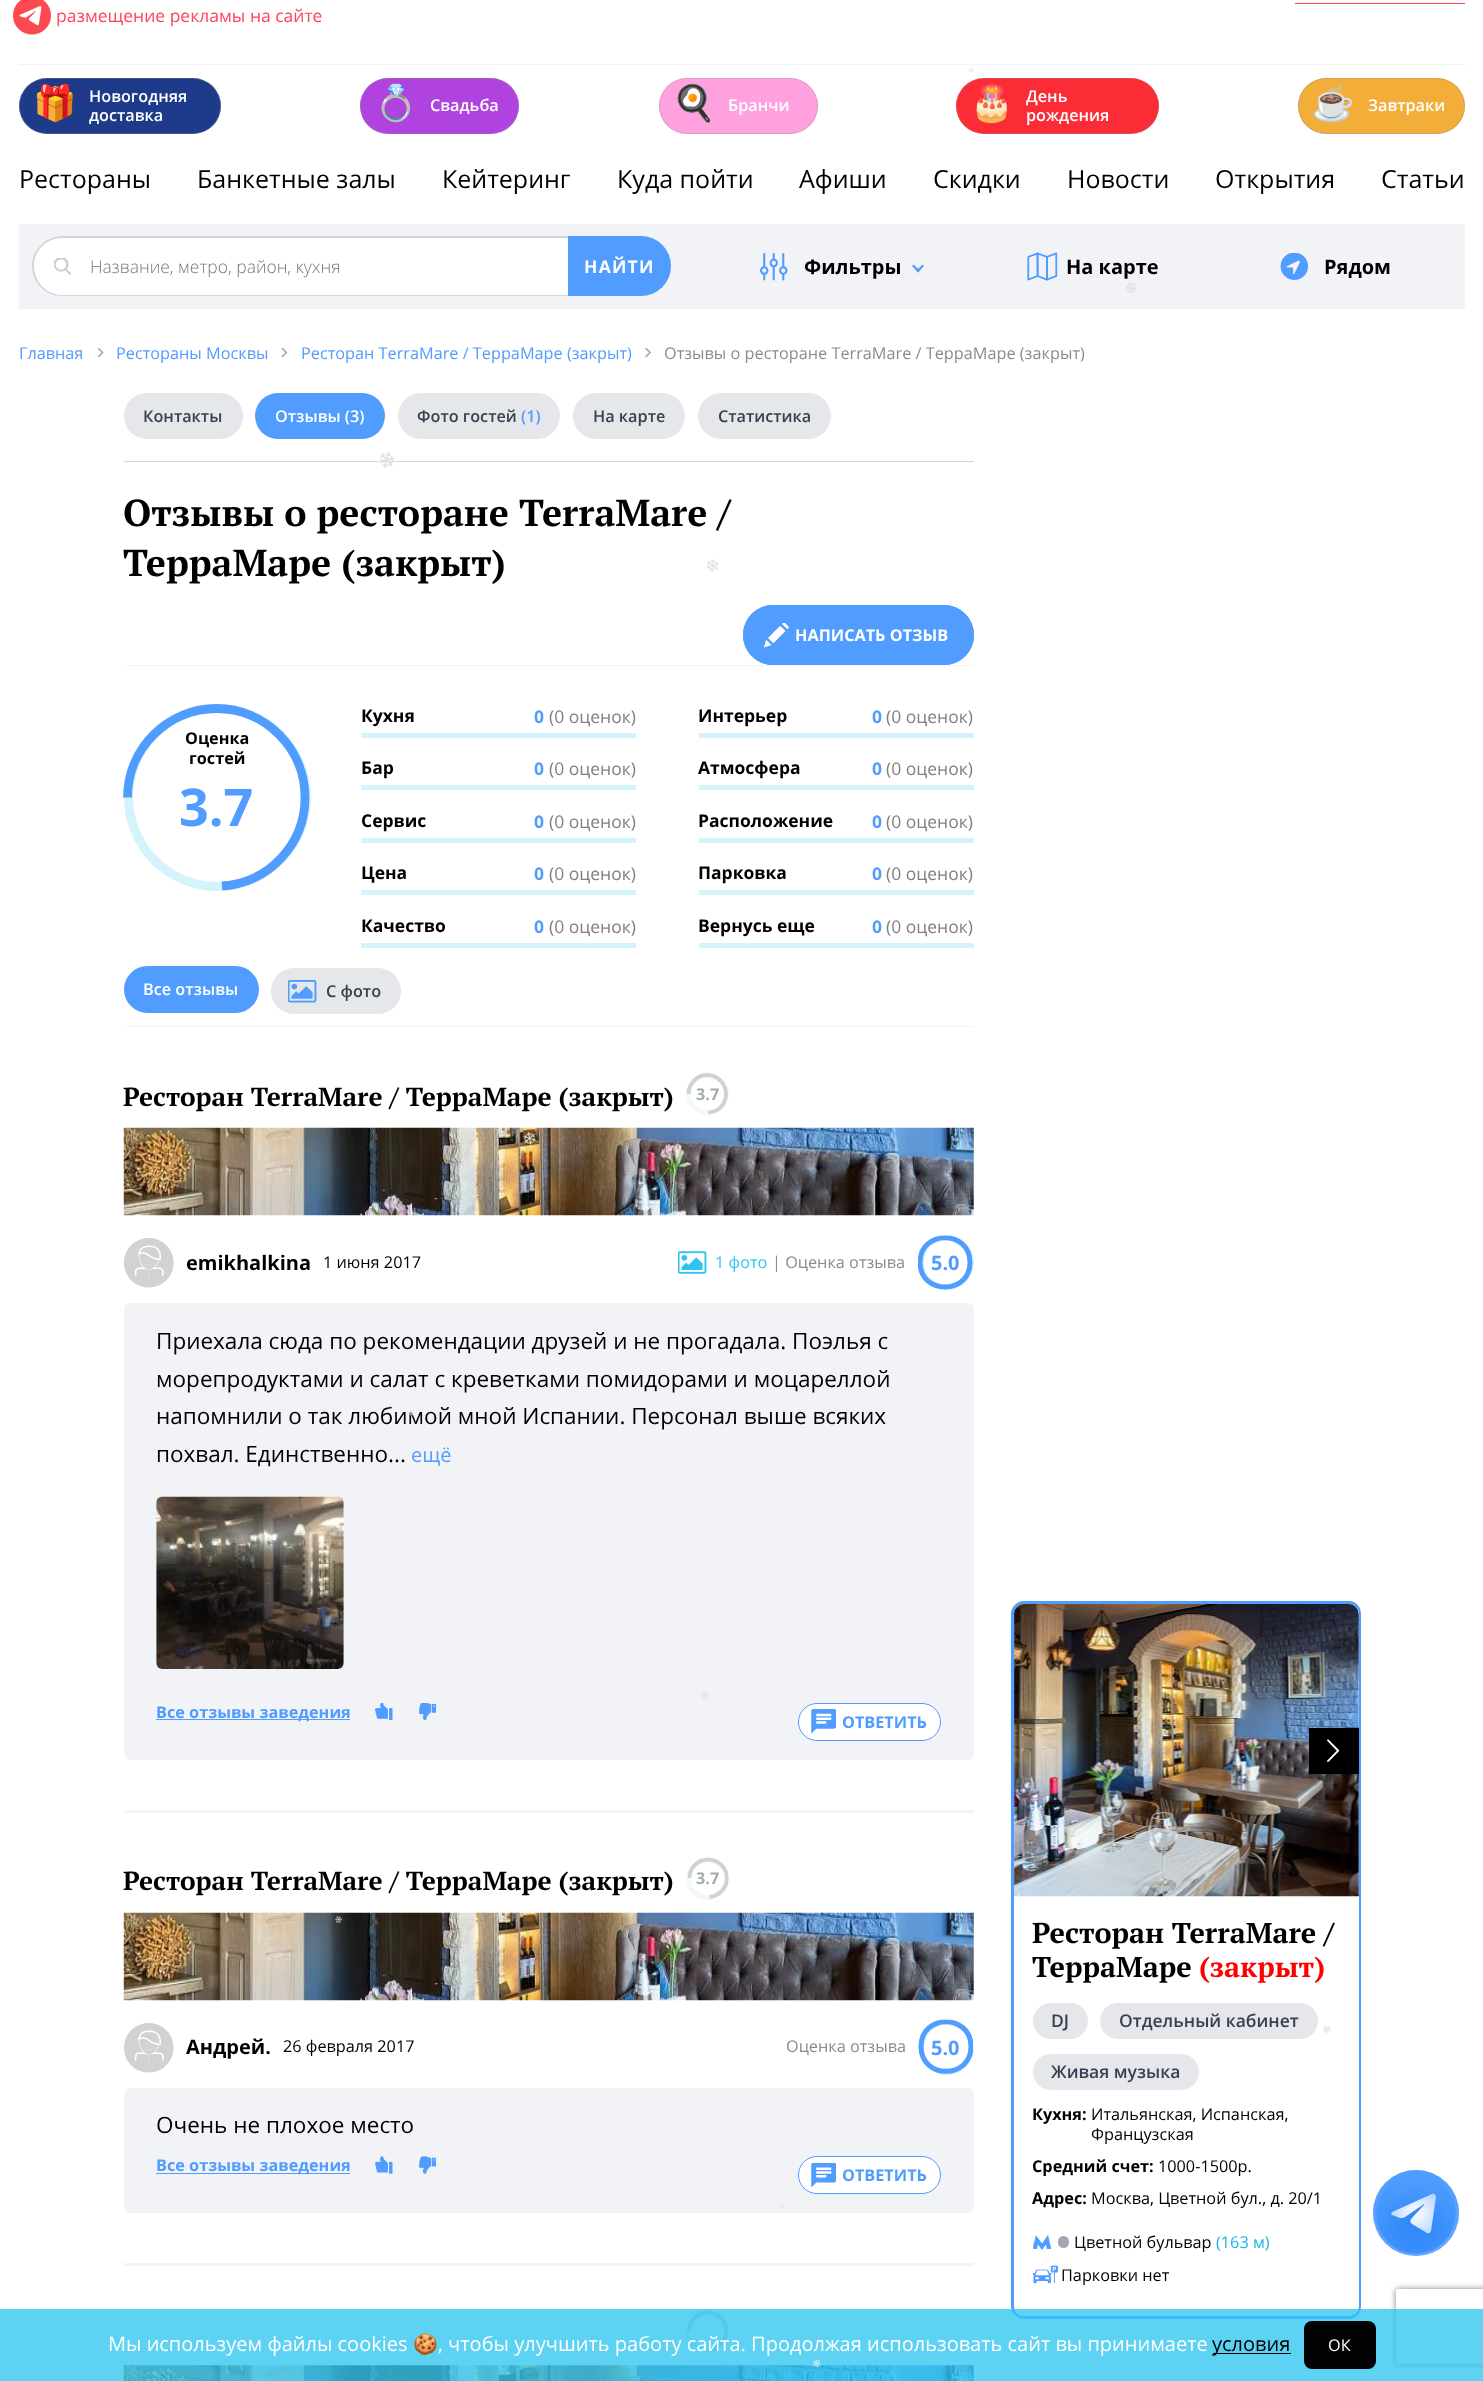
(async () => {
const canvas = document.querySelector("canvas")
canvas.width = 1483
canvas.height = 2381
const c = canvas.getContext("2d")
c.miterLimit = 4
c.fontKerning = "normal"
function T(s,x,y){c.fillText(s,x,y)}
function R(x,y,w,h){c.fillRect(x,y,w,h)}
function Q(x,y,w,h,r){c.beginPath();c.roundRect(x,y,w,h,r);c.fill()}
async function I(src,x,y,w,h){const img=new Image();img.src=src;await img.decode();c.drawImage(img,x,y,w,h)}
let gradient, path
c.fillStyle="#fff"
R(0,0,1483,2381)
c.fillStyle="#f2f3f7"
R(19,64,1446,1)
c.fillStyle="#ff435a"
R(1295,3,170,1)
await I("1.png",13,0,38,35)
c.font="17.5px Open Sans"
T("размещение рекламы на сайте",56,22)
c.fillStyle="#1e3a8a"
Q(19,78,202,56,28)
c.beginPath()
c.roundRect(19.5,78.5,201,55,27.5)
c.strokeStyle="#8e8c8c59"
c.stroke()
c.font="35px Noto Color Emoji"
c.fillStyle="#fff"
T("🎁",33,115)
c.font="600 16.25px Open Sans"
T("Новогодняя",89,102)
T("доставка",89,121)
c.fillStyle="#b043e0"
Q(360,78,159,56,28)
c.beginPath()
c.roundRect(360.5,78.5,158,55,27.5)
c.stroke()
c.font="35px Noto Color Emoji"
c.fillStyle="#fff"
T("💍",374,115)
c.font="600 16.25px Open Sans"
T("Свадьба",430,111)
c.fillStyle="#fea1de"
Q(659,78,159,56,28)
c.beginPath()
c.roundRect(659.5,78.5,158,55,27.5)
c.stroke()
c.font="35px Noto Color Emoji"
c.fillStyle="#fff"
T("🍳",672,115)
c.font="600 16.25px Open Sans"
T("Бранчи",728,111)
c.fillStyle="#fb2c36"
Q(956,78,203,56,28)
c.beginPath()
c.roundRect(956.5,78.5,202,55,27.5)
c.stroke()
c.font="35px Noto Color Emoji"
c.fillStyle="#fff"
T("🎂",970,115)
c.font="600 16.25px Open Sans"
T("День",1026,102)
T("рождения",1026,121)
c.fillStyle="#f3ad39"
Q(1298,78,167,56,28)
c.beginPath()
c.roundRect(1298.5,78.5,166,55,27.5)
c.stroke()
c.fillStyle="#fff"
T("Завтраки",1368,111)
c.font="35px Noto Color Emoji"
T("☕️",1311,115)
c.font="25px Open Sans"
c.fillStyle="#000"
T("Рестораны",19,188)
T("Банкетные залы",197,188)
T("Кейтеринг",442,188)
T("Куда пойти",617,188)
T("Афиши",799,188)
T("Скидки",933,188)
T("Новости",1067,188)
T("Открытия",1215,188)
T("Статьи",1381,188)
c.fillStyle="#f2f3f7"
R(19,224,1446,85)
c.fillStyle="#fff"
c.beginPath()
c.roundRect(33,236,535,60,[30,0,0,30])
c.fill()
await I("2.png",54,258,17,17)
c.fillStyle="#d1d6d9"
path = new Path2D("M62 236h506v60h-506c-16 0-30-13-30-30c0-16 14-30 30-30zm0 2h506v57h-506c-15 0-28-13-28-29c0-16 13-28 28-28z")
c.fill(path,"evenodd")
c.font="300 17.5px Open Sans"
c.fillStyle="#757575"
T("Название, метро, район, кухня",90,273)
c.fillStyle="#509cff"
c.beginPath()
c.roundRect(568,236,103,60,[0,30,30,0])
c.fill()
c.letterSpacing="1.25px"
c.font="bold 17.5px Open Sans"
c.fillStyle="#fff"
T("НАЙТИ",584,273)
await I("3.png",760,253,28,28)
c.letterSpacing="0px"
c.font="bold 20px Open Sans"
c.fillStyle="#000"
T("Фильтры",804,274)
c.fillStyle="#509cff"
path = new Path2D("M922.5 264.5l1.5 1.5l-6 6.5l-1.5-2z")
c.fill(path)
path = new Path2D("M913.5 264.5l6.5 6l-2 2l-6-6.5z")
c.fill(path)
await I("4.png",1027,252,31,29)
c.fillStyle="#000"
T("На карте",1066,274)
await I("5.png",1280,253,29,27)
T("Рядом",1324,274)
await I("6.png",98,348,6,10)
c.font="16.25px Open Sans"
c.fillStyle="#509cff"
T("Главная",19,359)
await I("7.png",281,348,7,10)
T("Рестораны Москвы",116,359)
await I("8.png",645,348,6,10)
T("Ресторан TerraMare / ТерраМаре (закрыт)",301,359)
c.fillStyle="#858d94"
T("Отзывы о ресторане TerraMare / ТерраМаре (закрыт)",664,359)
c.font="6px DejaVu Sans"
c.fillStyle="#e0e0e1"
c.save()
c.translate(971,67)
c.rotate(123 * Math.PI / 180)
c.fillText("❄",0,0)
c.restore()
c.font="16.25px DejaVu Sans"
c.save()
c.translate(1140,288)
c.rotate(-140 * Math.PI / 180)
c.fillText("❄",0,0)
c.restore()
c.fillStyle="#d5d6d8"
R(124,461,850,1)
c.fillStyle="#e5e7eb"
Q(124,393,119,46,23)
c.font="600 16.25px Open Sans"
c.fillStyle="#374151"
T("Контакты",143,422)
c.fillStyle="#509dff"
Q(255,393,130,46,23)
c.fillStyle="#fff"
T("Отзывы (3)",275,422)
c.fillStyle="#e5e7eb"
Q(398,393,162,46,23)
c.fillStyle="#374151"
T("Фото гостей",417,422)
c.fillStyle="#509cff"
T("(1)",521,422)
c.fillStyle="#e5e7eb"
Q(573,393,112,46,23)
c.fillStyle="#374151"
T("На карте",593,422)
c.fillStyle="#e5e7eb"
Q(698,393,133,46,23)
c.fillStyle="#374151"
T("Статистика",718,422)
c.font="bold 37.5px PT Serif"
c.fillStyle="#000"
T("Отзывы о ресторане TerraMare /",123,526)
T("ТерраМаре (закрыт)",123,576)
c.fillStyle="#509cff"
Q(743,605,231,60,30)
await I("9.png",764,623,25,25)
c.beginPath()
c.roundRect(744.5,606.5,228,57,28.5)
c.strokeStyle="#509cff"
c.lineWidth=3
c.stroke()
c.font="bold 16.25px Open Sans"
c.fillStyle="#fff"
T("НАПИСАТЬ ОТЗЫВ",795,641)
c.fillStyle="#f3f4f6"
R(124,665,850,1)
c.beginPath()
c.arc(217.5,797.5,89,0,7)
c.strokeStyle="#d5f3fc"
c.lineWidth=9
c.stroke()
c.fillStyle="#000"
T("Оценка",185,744)
T("гостей",189,764)
c.save()
path = new Path2D("M123 891.5v-187.5h187.5v187.5z")
c.clip(path)
path = new Path2D("M127.5 797.5c0-49 40-89 89-89c49 0 88.5 40 88.5 89c0 47-36.5 85.5-83 88.5")
c.strokeStyle="#509cff"
c.lineWidth=8.8
c.stroke(path)
c.restore()
c.font="bold 52px Open Sans"
c.fillStyle="#509cff"
T("3.7",179,826)
c.font="bold 17.5px Open Sans"
c.fillStyle="#000"
T("Кухня",361,722)
c.fillStyle="#d5f3fc"
R(361,733,275,5)
c.fillStyle="#509cff"
T("0",534,723)
c.font="17.5px Open Sans"
c.fillStyle="#808080"
T("(0 оценок)",549,723)
c.font="bold 17.5px Open Sans"
c.fillStyle="#000"
T("Бар",361,774)
c.fillStyle="#d5f3fc"
R(361,785,275,5)
c.fillStyle="#509cff"
T("0",534,775)
c.font="17.5px Open Sans"
c.fillStyle="#808080"
T("(0 оценок)",549,775)
c.font="bold 17.5px Open Sans"
c.fillStyle="#000"
T("Сервис",361,827)
c.fillStyle="#d5f3fc"
R(361,838,275,5)
c.fillStyle="#509cff"
T("0",534,828)
c.font="17.5px Open Sans"
c.fillStyle="#808080"
T("(0 оценок)",549,828)
c.font="bold 17.5px Open Sans"
c.fillStyle="#000"
T("Цена",361,879)
c.fillStyle="#d5f3fc"
R(361,890,275,5)
c.fillStyle="#509cff"
T("0",534,880)
c.font="17.5px Open Sans"
c.fillStyle="#808080"
T("(0 оценок)",549,880)
c.font="bold 17.5px Open Sans"
c.fillStyle="#000"
T("Качество",361,932)
c.fillStyle="#d5f3fc"
R(361,943,275,5)
c.fillStyle="#509cff"
T("0",534,933)
c.font="17.5px Open Sans"
c.fillStyle="#808080"
T("(0 оценок)",549,933)
c.font="bold 17.5px Open Sans"
c.fillStyle="#000"
T("Интерьер",698,722)
c.fillStyle="#d5f3fc"
R(699,733,275,5)
c.fillStyle="#509cff"
T("0",872,723)
c.font="17.5px Open Sans"
c.fillStyle="#808080"
T("(0 оценок)",886,723)
c.font="bold 17.5px Open Sans"
c.fillStyle="#000"
T("Атмосфера",698,774)
c.fillStyle="#d5f3fc"
R(699,785,275,5)
c.fillStyle="#509cff"
T("0",872,775)
c.font="17.5px Open Sans"
c.fillStyle="#808080"
T("(0 оценок)",886,775)
c.font="bold 17.5px Open Sans"
c.fillStyle="#000"
T("Расположение",698,827)
c.fillStyle="#d5f3fc"
R(699,838,275,5)
c.fillStyle="#509cff"
T("0",872,828)
c.font="17.5px Open Sans"
c.fillStyle="#808080"
T("(0 оценок)",886,828)
c.font="bold 17.5px Open Sans"
c.fillStyle="#000"
T("Парковка",698,879)
c.fillStyle="#d5f3fc"
R(699,890,275,5)
c.fillStyle="#509cff"
T("0",872,880)
c.font="17.5px Open Sans"
c.fillStyle="#808080"
T("(0 оценок)",886,880)
c.font="bold 17.5px Open Sans"
c.fillStyle="#000"
T("Вернусь еще",698,932)
c.fillStyle="#d5f3fc"
R(699,943,275,5)
c.fillStyle="#509cff"
T("0",872,933)
c.font="17.5px Open Sans"
c.fillStyle="#808080"
T("(0 оценок)",886,933)
c.fillStyle="#f3f4f6"
R(124,1026,850,1)
c.fillStyle="#509dff"
Q(124,966,135,47,23.5)
c.font="600 16.25px Open Sans"
c.fillStyle="#fff"
T("Все отзывы",143,995)
c.fillStyle="#e5e7eb"
Q(271,968,130,46,23)
await I("10.png",288,980,29,23)
c.fillStyle="#374151"
T("С фото",326,997)
c.fillStyle="#f3f4f6"
R(124,1810,850,3)
c.font="bold 26.25px PT Serif"
c.fillStyle="#000"
T("Ресторан TerraMare / ТерраМаре (закрыт)",123,1106)
c.beginPath()
c.roundRect(688.5,1075.5,38,37,18.5)
c.strokeStyle="#f6f7f7"
c.lineWidth=5
c.stroke()
c.font="bold 16.25px Open Sans"
c.fillStyle="#a4adb4"
T("3.7",696,1100)
path = new Path2D("M688.5 1094c0-10.5 8.5-19 18.5-19c10.5 0 19 8.5 19 19c0 10-7.5 18-17.5 18.5")
c.strokeStyle="#cdd2d5"
c.lineWidth=3.8
c.stroke(path)
await I("11.png",123,1127,851,89)
await I("12.png",124,1238,50,50)
c.font="bold 20px Open Sans"
c.fillStyle="#000"
T("emikhalkina",186,1270)
c.font="16.25px Open Sans"
T("1 июня 2017",323,1268)
await I("13.png",678,1251,29,23)
c.fillStyle="#2fc5f0"
T("1 фото",715,1268)
c.fillStyle="#858d94"
T("| Оценка отзыва",772,1268)
c.beginPath()
c.arc(946.5,1262.5,25,0,7)
c.strokeStyle="#d5f3fc"
c.lineWidth=5
c.stroke()
c.save()
path = new Path2D("M918 1290.5v-55h55v55z")
c.clip(path)
path = new Path2D("M920 1262.5c0-33 50-33 50 0c0 32.5-50 32.5-50 0")
c.strokeStyle="#509cff"
c.stroke(path)
c.restore()
c.font="bold 20px Open Sans"
c.fillStyle="#509cff"
T("5.0",931,1270)
c.fillStyle="#f2f3f7"
Q(124,1303,850,457,6)
c.font="22.5px Open Sans"
c.fillStyle="#000"
T("Приехала сюда по рекомендации друзей и не прогадала. Поэлья с",156,1349)
T("морепродуктами и салат с креветками помидорами и моцареллой",156,1387)
T("напомнили о так любимой мной Испании. Персонал выше всяких",156,1424)
T("похвал. Единственно...",156,1462)
c.font="20px Open Sans"
c.fillStyle="#509cff"
T("ещё",411,1462)
await I("14.png",156,1496,188,173)
R(156,1719,194,1)
c.font="bold 16.25px Open Sans"
T("Все отзывы заведения",156,1718)
await I("15.png",375,1703,18,17)
await I("16.png",419,1703,17,17)
c.fillStyle="#fff"
Q(798,1703,143,38,19)
await I("17.png",811,1709,25,25)
c.beginPath()
c.roundRect(798.5,1703.5,142,37,18.5)
c.strokeStyle="#509cff"
c.lineWidth=1
c.stroke()
c.fillStyle="#509cff"
T("ОТВЕТИТЬ",842,1728)
c.fillStyle="#f3f4f6"
R(124,2263,850,3)
c.font="bold 26.25px PT Serif"
c.fillStyle="#000"
T("Ресторан TerraMare / ТерраМаре (закрыт)",123,1890)
c.beginPath()
c.roundRect(688.5,1860.5,38,37,18.5)
c.strokeStyle="#f6f7f7"
c.lineWidth=5
c.stroke()
c.font="bold 16.25px Open Sans"
c.fillStyle="#a4adb4"
T("3.7",696,1884)
c.save()
path = new Path2D("M686 1899.5v-42.5h42.5v42.5z")
c.clip(path)
path = new Path2D("M689.5 1878c0-10 8-18.5 18.5-18.5c10.5 0 19 8.5 19 18.5c0 10-8 18-17.5 19")
c.strokeStyle="#cdd2d5"
c.lineWidth=3.8
c.stroke(path)
c.restore()
await I("18.png",123,1912,851,89)
await I("19.png",124,2023,50,50)
c.font="bold 20px Open Sans"
c.fillStyle="#000"
T("Андрей.",186,2054)
c.font="16.25px Open Sans"
T("26 февраля 2017",283,2052)
c.fillStyle="#858d94"
T("Оценка отзыва",786,2052)
c.beginPath()
c.arc(946.5,2047.5,25,0,7)
c.strokeStyle="#d5f3fc"
c.stroke()
c.save()
path = new Path2D("M918 2074.5v-55h55v55z")
c.clip(path)
path = new Path2D("M921 2046.5c0-33 50-33 50 0c0 33-50 33-50 0")
c.strokeStyle="#509cff"
c.stroke(path)
c.restore()
c.font="bold 20px Open Sans"
c.fillStyle="#509cff"
T("5.0",931,2055)
c.fillStyle="#f2f3f7"
Q(124,2088,850,125,6)
c.font="22.5px Open Sans"
c.fillStyle="#000"
T("Очень не плохое место",156,2133)
c.fillStyle="#509cff"
R(156,2173,194,1)
c.font="bold 16.25px Open Sans"
T("Все отзывы заведения",156,2171)
await I("20.png",375,2156,18,18)
await I("21.png",419,2156,17,18)
c.fillStyle="#fff"
Q(798,2156,143,38,19)
await I("22.png",811,2163,25,25)
c.beginPath()
c.roundRect(798.5,2156.5,142,37,18.5)
c.strokeStyle="#509cff"
c.lineWidth=1
c.stroke()
c.fillStyle="#509cff"
T("ОТВЕТИТЬ",842,2181)
c.beginPath()
c.arc(707.5,2331.5,19,0,7)
c.strokeStyle="#f6f7f7"
c.lineWidth=5
c.stroke()
c.save()
path = new Path2D("M686 2352.5v-42.5h42.5v42.5z")
c.clip(path)
path = new Path2D("M689 2331c0-10.5 8-18.5 18.5-18.5c10.5 0 19 8 19 18.5c0 10-8 18-17.5 19")
c.strokeStyle="#cdd2d5"
c.lineWidth=3.8
c.stroke(path)
c.restore()
await I("23.png",123,2365,851,16)
path = new Path2D("M1024 1601h325c7 0 12 6 12 13v282h-350v-282c0-7 6-13 13-13zm0 3h325c5 0 10 4 10 10v282h-345v-282c0-6 4-10 10-10z")
c.fill(path,"evenodd")
path = new Path2D("M1011 1896h350v410c0 7-5 13-12 13h-325c-7 0-13-6-13-13zm3 0h345v410c0 6-5 10-10 10h-325c-6 0-10-4-10-10z")
c.fill(path,"evenodd")
await I("24.png",1014,1604,345,293)
c.fillStyle="#000"
R(1309,1728,50,46)
await I("25.png",1327,1739,13,23)
c.font="bold 28.75px PT Serif"
T("Ресторан TerraMare /",1032,1943)
T("ТерраМаре",1032,1977)
c.fillStyle="#f00"
T("(закрыт)",1199,1977)
c.fillStyle="#e5e7eb"
Q(1033,2003,55,36,18)
c.font="600 17.5px Open Sans"
c.fillStyle="#374151"
T("DJ",1051,2027)
c.fillStyle="#e5e7eb"
Q(1100,2003,218,36,18)
c.fillStyle="#374151"
T("Отдельный кабинет",1119,2027)
c.fillStyle="#e5e7eb"
Q(1033,2054,166,36,18)
c.fillStyle="#374151"
T("Живая музыка",1051,2078)
c.font="bold 16.25px Open Sans"
c.fillStyle="#000"
T("Кухня:",1032,2120)
c.font="16.25px Open Sans"
T("Итальянская, Испанская,",1091,2120)
T("Французская",1091,2140)
c.font="bold 16.25px Open Sans"
T("Средний счет:",1032,2172)
c.font="16.25px Open Sans"
T("1000-1500р.",1158,2172)
c.font="bold 16.25px Open Sans"
T("Адрес:",1032,2204)
c.font="16.25px Open Sans"
T("Москва, Цветной бул., д. 20/1",1091,2204)
await I("26.png",1033,2235,19,15)
c.fillStyle="#a2a5b4"
Q(1058,2236,11,12,5.5)
c.fillStyle="#000"
T("Цветной бульвар",1074,2248)
c.fillStyle="#11b7e6"
T("(163 м)",1216,2248)
await I("27.png",1033,2265,25,19)
c.fillStyle="#000"
T("Парковки нет",1061,2281)
c.font="22.5px DejaVu Sans"
c.fillStyle="#e0e0e1"
c.save()
c.translate(397,467)
c.rotate(-104 * Math.PI / 180)
c.fillText("❄",0,0)
c.restore()
c.font="17.5px DejaVu Sans"
c.save()
c.translate(704,561)
c.rotate(68 * Math.PI / 180)
c.fillText("❄",0,0)
c.restore()
c.fillStyle="#dbd7d2"
c.save()
c.translate(520,1137)
c.rotate(49 * Math.PI / 180)
c.fillText("❄",0,0)
c.restore()
c.font="8px DejaVu Sans"
c.fillStyle="#e0e0e1"
c.save()
c.translate(407,1414)
c.rotate(24 * Math.PI / 180)
c.fillText("❄",0,0)
c.restore()
c.font="12px DejaVu Sans"
c.save()
c.translate(709,1701)
c.rotate(-85 * Math.PI / 180)
c.fillText("❄",0,0)
c.restore()
c.font="10px DejaVu Sans"
c.fillStyle="#c4c5c5"
c.save()
c.translate(342,1924)
c.rotate(-87 * Math.PI / 180)
c.fillText("❄",0,0)
c.restore()
c.font="11px DejaVu Sans"
c.fillStyle="#e0e0e1"
c.save()
c.translate(1329,2035)
c.rotate(-70 * Math.PI / 180)
c.fillText("❄",0,0)
c.restore()
c.font="6px DejaVu Sans"
c.save()
c.translate(785,2205)
c.rotate(-166 * Math.PI / 180)
c.fillText("❄",0,0)
c.restore()
c.save()
path = new Path2D("M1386 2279h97v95h-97zm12.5 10h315c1.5 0 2.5 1 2.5 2.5v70c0 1.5-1 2.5-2.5 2.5h-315c-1.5 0-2.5-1-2.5-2.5v-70c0-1.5 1-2.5 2.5-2.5z")
c.clip(path,"evenodd")
c.fillStyle="#808080"
c.filter="blur(3px)"
c.beginPath()
c.roundRect(1396,2289,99,75,2.5)
c.fill()
c.filter="none"
c.restore()
c.fillStyle="#31c5f0c7"
R(0,2309,1483,72)
c.font="11px DejaVu Sans"
c.fillStyle="#d9e9ee"
c.save()
c.translate(819,2369)
c.rotate(-70 * Math.PI / 180)
c.fillText("❄",0,0)
c.restore()
gradient = c.createLinearGradient(1416,2170,1416,2256)
gradient.addColorStop(0,"#509dff")
gradient.addColorStop(1,"#93c2ff")
c.fillStyle = gradient
c.beginPath()
c.arc(1416,2213,43,0,7)
c.fill()
c.fillStyle="#509dff"
c.beginPath()
c.arc(1415.5,2213.5,40.5,0,7)
c.fill()
gradient = c.createLinearGradient(1416,2174,1416,2253)
gradient.addColorStop(0,"#509cff")
gradient.addColorStop(1,"#1475f2")
c.fillStyle = gradient
c.beginPath()
c.arc(1416,2214,39.5,0,7)
c.fill()
c.fillStyle="#fff"
path = new Path2D("M1436 2197c0-2-2-4-4-3l-40 18c-1 1-1 3 0 3l8 3c2 0 4 0 5-1l19-13c0 0 1 1 0 1l-13 14c-1 1-1 4 1 5l15 9c1 1 3 0 4-2z")
c.fill(path)
gradient = c.createRadialGradient(1416,2213,0,1416,2213,61)
gradient.addColorStop(0,"#509dff00")
gradient.addColorStop(1,"#509dff")
c.fillStyle = gradient
c.beginPath()
c.arc(1416,2213,43,0,7)
c.fill()
c.font="20px Open Sans"
c.fillStyle="#fff"
T("Мы используем файлы cookies",108,2351)
c.font="20px 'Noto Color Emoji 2'"
T("🍪",413,2351)
c.font="20px Open Sans"
T(", чтобы улучшить работу сайта. Продолжая использовать сайт вы принимаете",438,2351)
c.fillStyle="#000"
R(1213,2353,78,1)
T("условия",1212,2351)
c.fillStyle="#020202"
Q(1304,2321,72,48,8)
c.font="16.25px Open Sans"
c.fillStyle="#fff"
T("ОК",1328,2351)
})()
